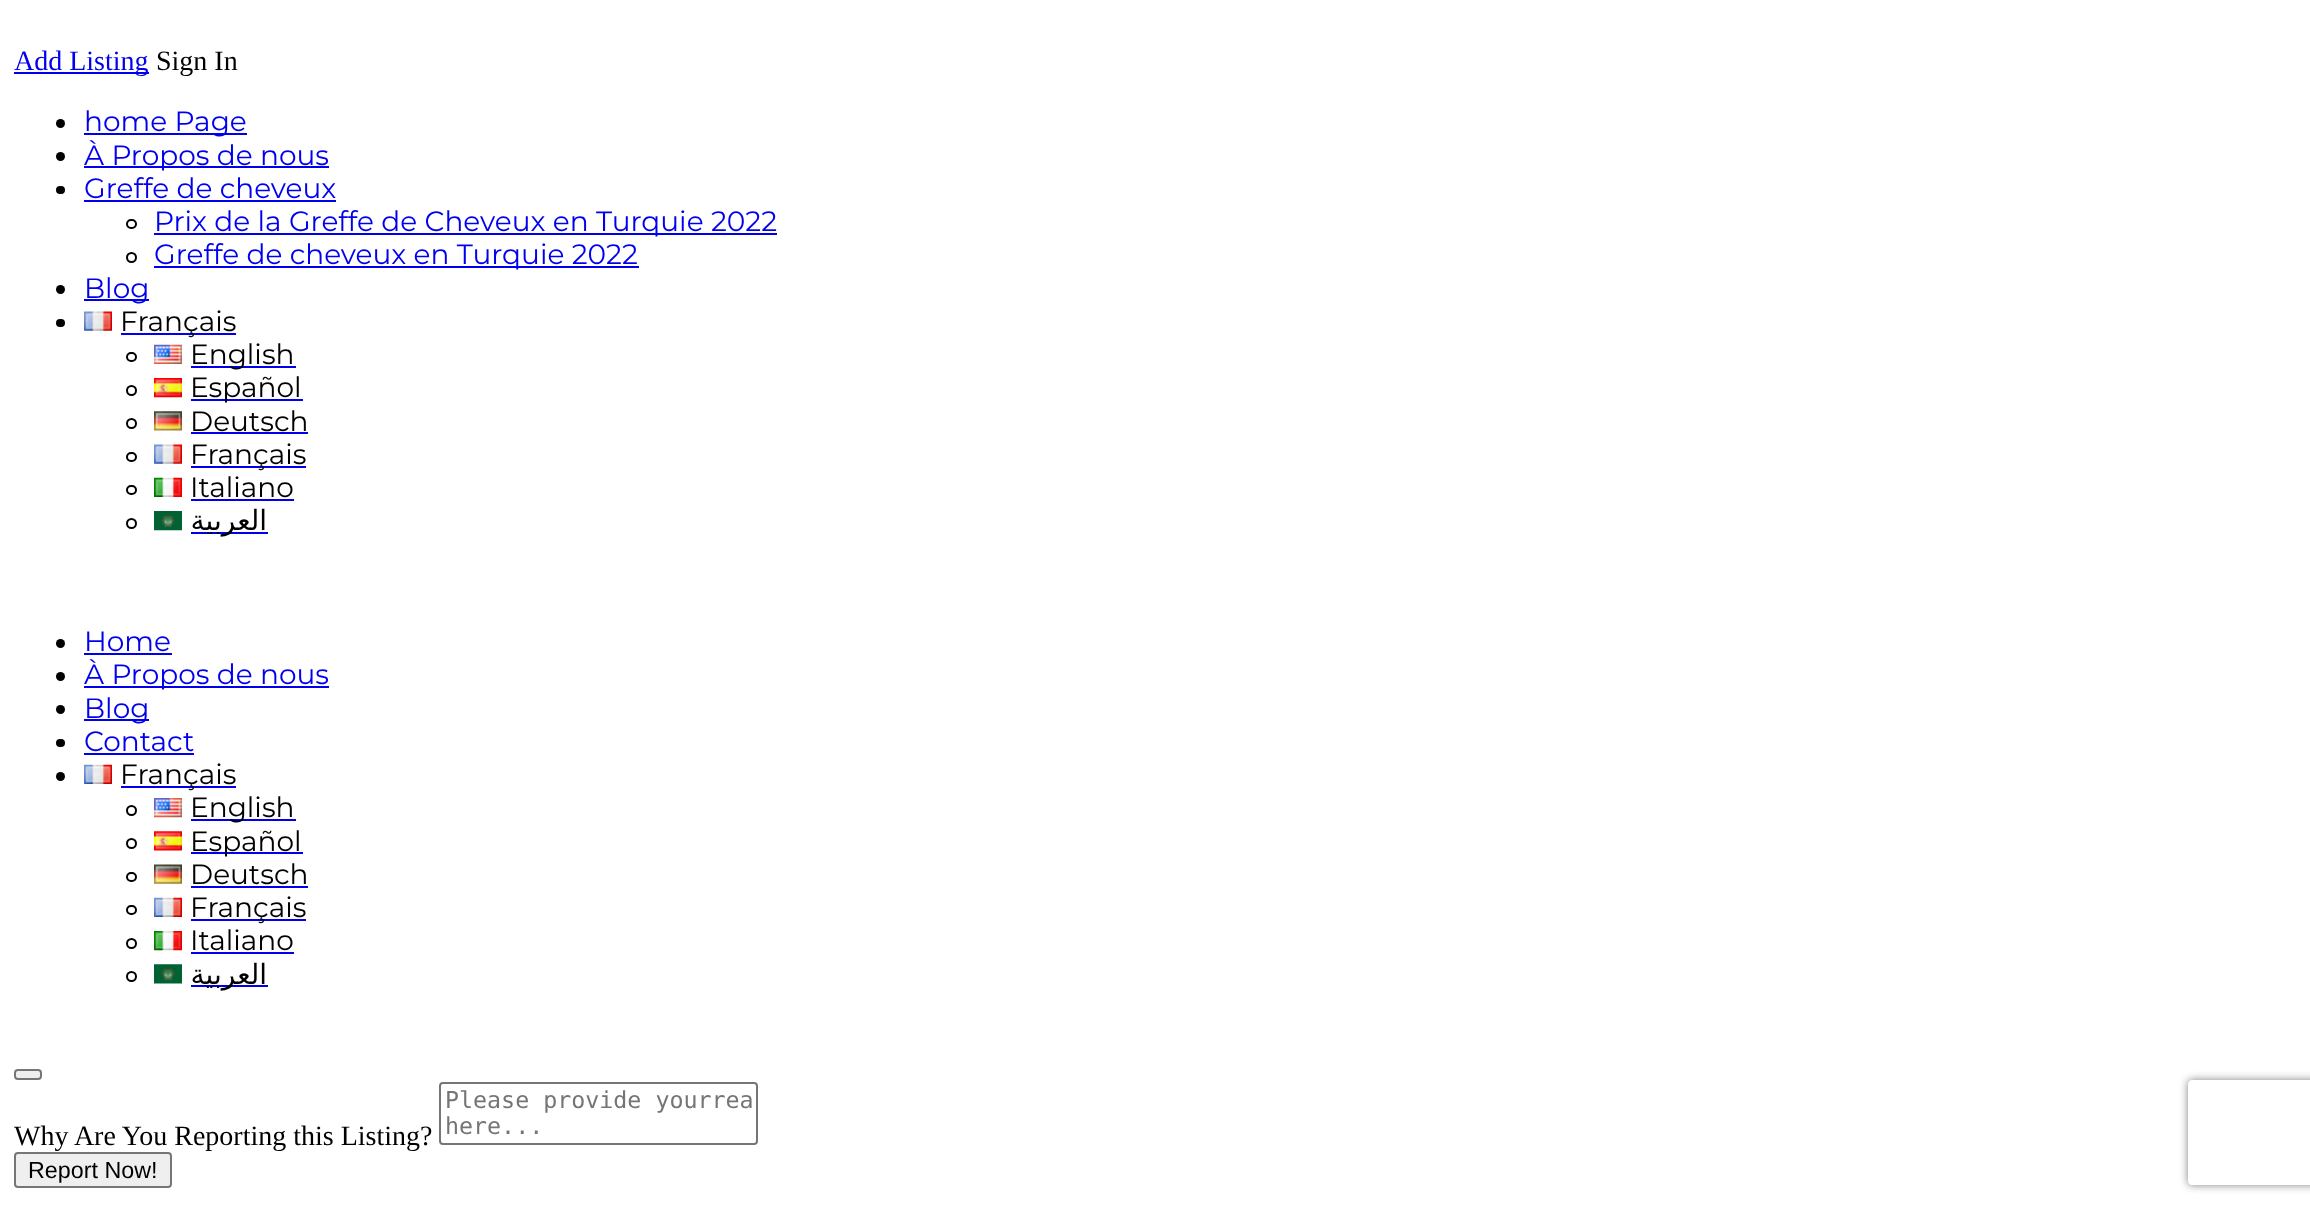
(async () => {
const canvas = document.querySelector("canvas")
canvas.width = 2310
canvas.height = 1208
const c = canvas.getContext("2d")
c.miterLimit = 4
c.fontKerning = "normal"
function T(s,x,y){c.fillText(s,x,y)}
function R(x,y,w,h){c.fillRect(x,y,w,h)}
function Q(x,y,w,h,r){c.beginPath();c.roundRect(x,y,w,h,r);c.fill()}
async function I(src,x,y,w,h){const img=new Image();img.src=src;await img.decode();c.drawImage(img,x,y,w,h)}
let path
c.fillStyle="#fff"
R(0,0,2310,1208)
c.fillStyle="#00e"
R(14,72,135,2)
c.font="28px Liberation Serif"
T("Add Listing",14,70)
c.fillStyle="#000"
T("Sign In",156,70)
c.beginPath()
c.arc(60.5,123.5,4.5,0,7)
c.fill()
c.fillStyle="#00e"
R(84,133,163,2)
c.font="28px Montserrat"
T("home Page",84,131)
c.fillStyle="#000"
c.beginPath()
c.arc(60.5,156.5,4.5,0,7)
c.fill()
c.fillStyle="#00e"
R(84,166,245,2)
T("À Propos de nous",84,165)
c.fillStyle="#000"
Q(56,186,9,8,4)
c.fillStyle="#00e"
T("Greffe de cheveux",84,198)
R(84,200,252,2)
c.beginPath()
c.roundRect(127,220,9,8,4)
c.strokeStyle="#000"
c.lineWidth=2
c.stroke()
R(154,233,623,2)
T("Prix de la Greffe de Cheveux en Turquie 2022",154,231)
c.beginPath()
c.arc(131.5,257.5,4.5,0,7)
c.stroke()
R(154,266,485,2)
T("Greffe de cheveux en Turquie 2022",154,264)
c.fillStyle="#000"
c.beginPath()
c.arc(60.5,289.5,4.5,0,7)
c.fill()
c.fillStyle="#00e"
R(84,299,65,2)
T("Blog",84,298)
c.fillStyle="#000"
Q(56,319,9,8,4)
await I("1.png",84,311,28,20)
c.fillStyle="#00e"
R(121,333,115,2)
c.fillStyle="#000"
T("Français",120,331)
c.beginPath()
c.roundRect(127,353,9,8,4)
c.stroke()
await I("2.png",154,344,28,20)
c.fillStyle="#00e"
R(191,366,105,2)
c.fillStyle="#000"
T("English",190,364)
c.beginPath()
c.arc(131.5,390.5,4.5,0,7)
c.stroke()
await I("3.png",154,378,28,20)
c.fillStyle="#00e"
R(191,399,112,2)
c.fillStyle="#000"
T("Español",190,397)
c.beginPath()
c.arc(131.5,423.5,4.5,0,7)
c.stroke()
await I("4.png",154,411,28,20)
T("Deutsch",190,431)
c.fillStyle="#00e"
R(191,432,117,2)
c.beginPath()
c.roundRect(127,453,9,8,4)
c.stroke()
await I("1.png",154,444,28,20)
R(191,466,115,2)
c.fillStyle="#000"
T("Français",190,464)
c.beginPath()
c.roundRect(127,486,9,8,4)
c.stroke()
await I("5.png",154,477,28,20)
T("Italiano",190,497)
c.fillStyle="#00e"
R(191,499,103,2)
c.beginPath()
c.arc(131.5,523.5,4.5,0,7)
c.stroke()
await I("6.png",154,511,28,20)
R(191,532,77,2)
c.direction="rtl"
c.font="28px DejaVu Sans"
c.fillStyle="#000"
T("العربية",267,530)
c.beginPath()
c.arc(60.5,643.5,4.5,0,7)
c.fill()
c.direction="ltr"
c.font="28px Montserrat"
c.fillStyle="#00e"
T("Home",84,651)
R(84,653,88,2)
c.fillStyle="#000"
c.beginPath()
c.arc(60.5,676.5,4.5,0,7)
c.fill()
c.fillStyle="#00e"
R(84,686,245,2)
T("À Propos de nous",84,684)
c.fillStyle="#000"
c.beginPath()
c.arc(60.5,709.5,4.5,0,7)
c.fill()
c.fillStyle="#00e"
R(84,719,65,2)
T("Blog",84,718)
c.fillStyle="#000"
Q(56,739,9,8,4)
c.fillStyle="#00e"
T("Contact",84,751)
R(84,753,110,2)
c.fillStyle="#000"
c.beginPath()
c.arc(60.5,776.5,4.5,0,7)
c.fill()
await I("7.png",84,764,28,20)
c.fillStyle="#00e"
R(121,786,115,2)
c.fillStyle="#000"
T("Français",120,784)
c.beginPath()
c.arc(131.5,810.5,4.5,0,7)
c.stroke()
await I("8.png",154,798,28,20)
c.fillStyle="#00e"
R(191,819,105,2)
c.fillStyle="#000"
T("English",190,817)
c.beginPath()
c.arc(131.5,843.5,4.5,0,7)
c.stroke()
await I("9.png",154,831,28,20)
c.fillStyle="#00e"
R(191,852,112,2)
c.fillStyle="#000"
T("Español",190,851)
c.beginPath()
c.roundRect(127,873,9,8,4)
c.stroke()
await I("10.png",154,864,28,20)
T("Deutsch",190,884)
c.fillStyle="#00e"
R(191,886,117,2)
c.beginPath()
c.roundRect(127,906,9,8,4)
c.stroke()
await I("7.png",154,897,28,20)
R(191,919,115,2)
c.fillStyle="#000"
T("Français",190,917)
c.beginPath()
c.arc(131.5,943.5,4.5,0,7)
c.stroke()
await I("11.png",154,931,28,20)
T("Italiano",190,950)
c.fillStyle="#00e"
R(191,952,103,2)
c.beginPath()
c.arc(131.5,976.5,4.5,0,7)
c.stroke()
await I("12.png",154,964,28,20)
R(191,985,77,2)
c.direction="rtl"
c.font="28px DejaVu Sans"
c.fillStyle="#000"
T("العربية",267,984)
c.fillStyle="#efefef"
c.beginPath()
c.roundRect(15,1070,26,9,3)
c.fill()
c.strokeStyle="#767676"
c.stroke()
c.beginPath()
c.roundRect(440,1083,317,61,3)
c.stroke()
c.direction="ltr"
c.font="23.3px DejaVu Sans Mono"
c.fillStyle="#757575"
T("Please provide yourrea",445,1108)
T("here...",445,1134)
c.font="28px Liberation Serif"
c.fillStyle="#000"
T("Why Are You Reporting this Listing?",14,1145)
c.fillStyle="#efefef"
c.beginPath()
c.roundRect(15,1153,156,34,3)
c.fill()
c.stroke()
c.font="23.3px Liberation Sans"
c.fillStyle="#000"
T("Report Now!",28,1178)
c.save()
path = new Path2D("M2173 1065h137v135h-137zm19 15h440c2 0 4 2 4 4v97c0 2-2 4-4 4h-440c-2 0-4-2-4-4v-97c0-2 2-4 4-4z")
c.clip(path,"evenodd")
c.fillStyle="#808080"
c.filter="blur(4.5px)"
c.beginPath()
c.roundRect(2188,1080,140,105,4)
c.fill()
c.filter="none"
c.restore()
})()
